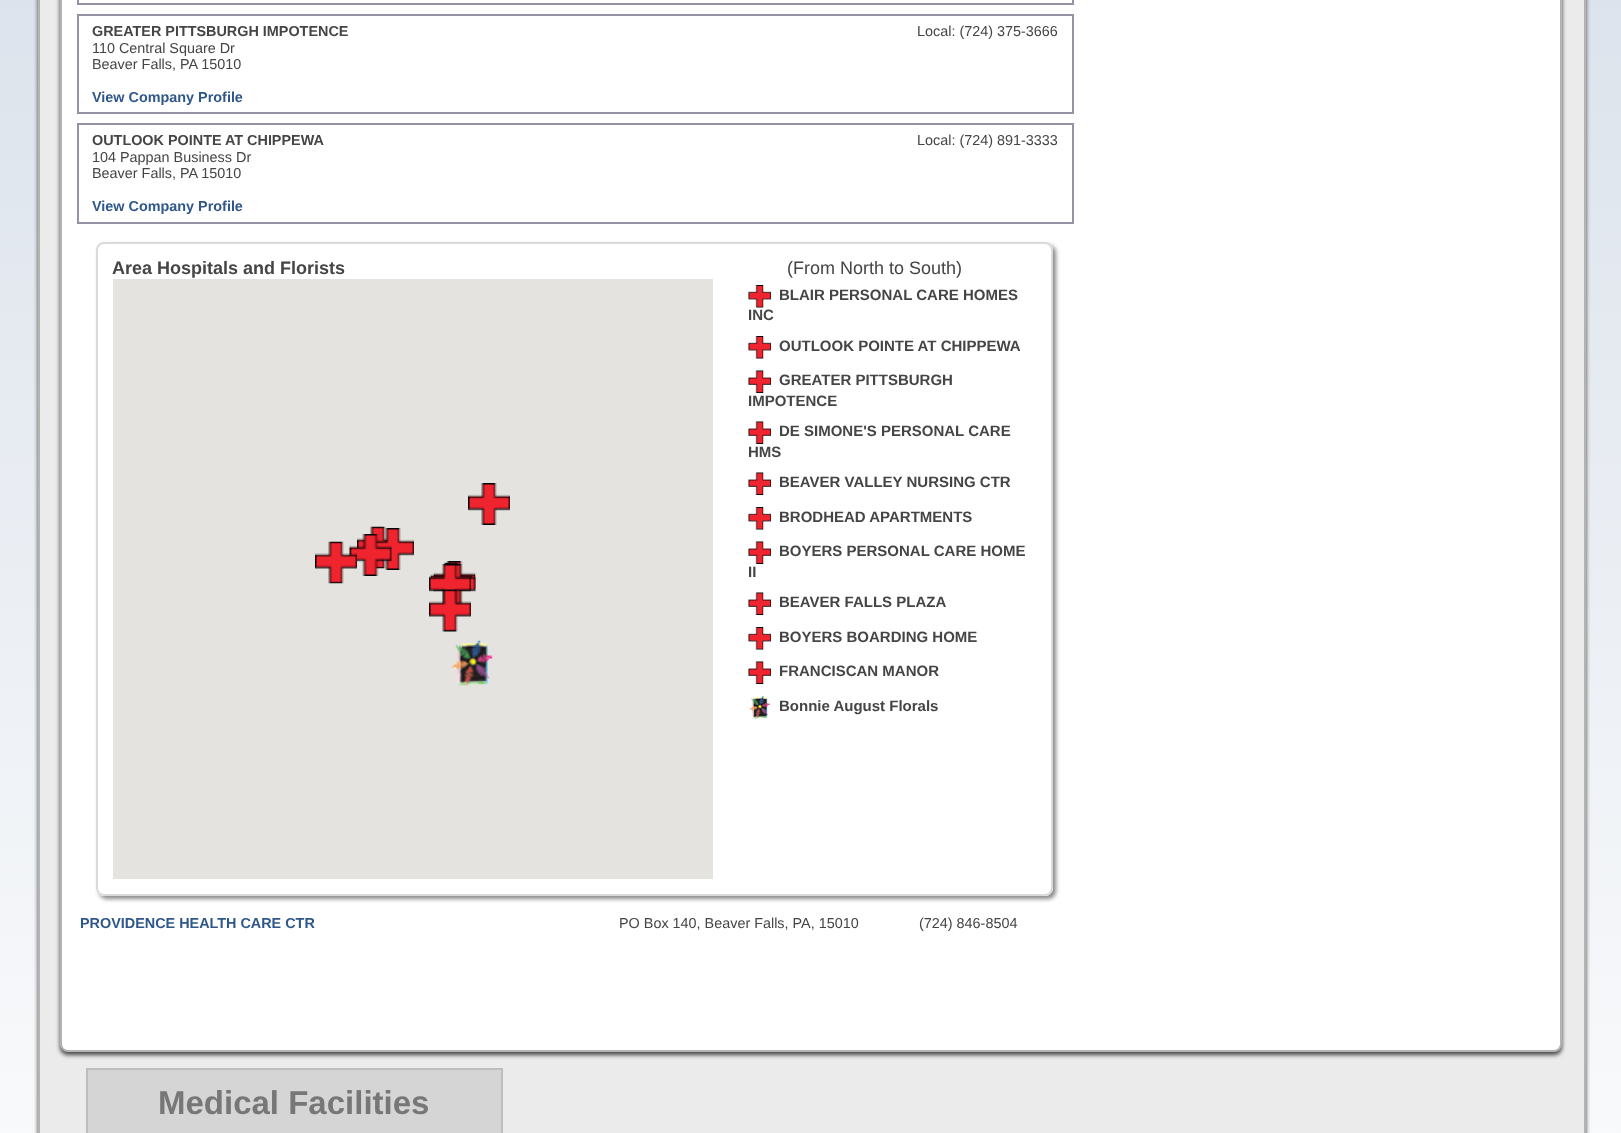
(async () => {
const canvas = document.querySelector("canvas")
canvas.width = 1621
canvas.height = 1133
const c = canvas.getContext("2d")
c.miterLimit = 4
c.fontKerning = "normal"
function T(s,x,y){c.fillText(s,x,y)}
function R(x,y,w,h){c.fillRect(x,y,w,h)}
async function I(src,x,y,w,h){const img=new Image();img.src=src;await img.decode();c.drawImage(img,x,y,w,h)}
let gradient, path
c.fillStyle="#fff"
R(0,0,1621,1133)
gradient = c.createLinearGradient(811,-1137,811,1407)
gradient.addColorStop(0,"#c1cddd")
gradient.addColorStop(1,"#fff")
c.fillStyle = gradient
R(0,0,1621,1133)
c.fillStyle="#454545"
c.filter="blur(2px)"
c.beginPath()
c.roundRect(38,-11,1548,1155,5)
c.fill()
c.filter="none"
c.fillStyle="#ebebeb"
c.beginPath()
c.rect(39,-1,1546,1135)
c.fill()
c.strokeStyle="#b3b3b3"
c.lineWidth=2
c.stroke()
c.fillStyle="#454545"
c.filter="blur(2px)"
c.beginPath()
c.roundRect(60,-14,1502,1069,8)
c.fill()
c.filter="none"
c.fillStyle="#fff"
c.beginPath()
c.roundRect(61,-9,1500,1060,7)
c.fill()
c.stroke()
c.strokeStyle="#9393a5"
c.strokeRect(78,-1,995,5)
c.strokeRect(78,15,995,98)
c.font="bold 14.4px Liberation Sans"
c.fillStyle="#454545"
T("GREATER PITTSBURGH IMPOTENCE",92,36)
c.font="14.4px Liberation Sans"
T("110 Central Square Dr",92,53)
T("Beaver Falls, PA 15010",92,69)
T("Local: (724) 375-3666",917,36)
c.font="bold 14.4px Liberation Sans"
c.fillStyle="#2f578a"
T("View Company Profile",92,102)
c.strokeRect(78,124,995,99)
c.fillStyle="#454545"
T("OUTLOOK POINTE AT CHIPPEWA",92,145)
c.font="14.4px Liberation Sans"
T("104 Pappan Business Dr",92,162)
T("Beaver Falls, PA 15010",92,178)
T("Local: (724) 891-3333",917,145)
c.font="bold 14.4px Liberation Sans"
c.fillStyle="#2f578a"
T("View Company Profile",92,211)
c.save()
path = new Path2D("M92 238h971v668h-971zm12 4h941c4.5 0 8 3.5 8 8v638c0 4.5-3.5 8-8 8h-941c-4.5 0-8-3.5-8-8v-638c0-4.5 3.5-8 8-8z")
c.clip(path,"evenodd")
c.fillStyle="#888"
c.filter="blur(2px)"
c.beginPath()
c.roundRect(99,245,957,654,8)
c.fill()
c.filter="none"
c.restore()
c.beginPath()
c.roundRect(97,243,955,652,7)
c.strokeStyle="#dadada"
c.stroke()
c.font="bold 18px Liberation Sans"
c.fillStyle="#454545"
T("Area Hospitals and Florists",112,274)
c.font="18px Liberation Sans"
T("(From North to South)",787,274)
c.fillStyle="#e5e3df"
R(113,279,600,600)
await I("1.png",468,483,42,42)
await I("2.png",357,526,42,43)
await I("5.png",375,528,39,42)
await I("4.png",349,534,43,42)
await I("3.png",315,541,42,43)
await I("6.png",433,561,43,42)
await I("7.png",430,562,43,42)
await I("9.png",433,564,43,40)
await I("8.png",429,564,42,40)
await I("10.png",429,589,42,43)
await I("11.png",451,640,42,46)
await I("12.png",748,285,23,23)
c.font="bold 15px Liberation Sans"
c.fillStyle="#454545"
T("BLAIR PERSONAL CARE HOMES",779,300)
T("INC",748,320)
await I("12.png",748,336,23,23)
T("OUTLOOK POINTE AT CHIPPEWA",779,351)
await I("13.png",748,370,23,23)
T("GREATER PITTSBURGH",779,385)
T("IMPOTENCE",748,406)
await I("13.png",748,421,23,23)
T("DE SIMONE'S PERSONAL CARE",779,436)
T("HMS",748,457)
await I("13.png",748,472,23,23)
T("BEAVER VALLEY NURSING CTR",779,487)
await I("12.png",748,507,23,23)
T("BRODHEAD APARTMENTS",779,522)
await I("13.png",748,541,23,23)
T("BOYERS PERSONAL CARE HOME",779,556)
T("II",748,577)
await I("13.png",748,592,23,23)
T("BEAVER FALLS PLAZA",779,607)
await I("12.png",748,627,23,23)
T("BOYERS BOARDING HOME",779,642)
await I("13.png",748,661,23,23)
T("FRANCISCAN MANOR",779,676)
await I("14.png",749,696,21,23)
T("Bonnie August Florals",779,711)
c.font="bold 14.4px Liberation Sans"
c.fillStyle="#2f578a"
T("PROVIDENCE HEALTH CARE CTR",80,928)
c.font="14.4px Liberation Sans"
c.fillStyle="#454545"
T("PO Box 140, Beaver Falls, PA, 15010",619,928)
T("(724) 846-8504",919,928)
c.fillStyle="#d5d5d5"
c.beginPath()
c.rect(87,1069,415,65)
c.fill()
c.strokeStyle="#bdbdbd"
c.stroke()
c.font="bold 33px Liberation Sans"
c.fillStyle="#777"
T("Medical Facilities",158,1114)
})()
